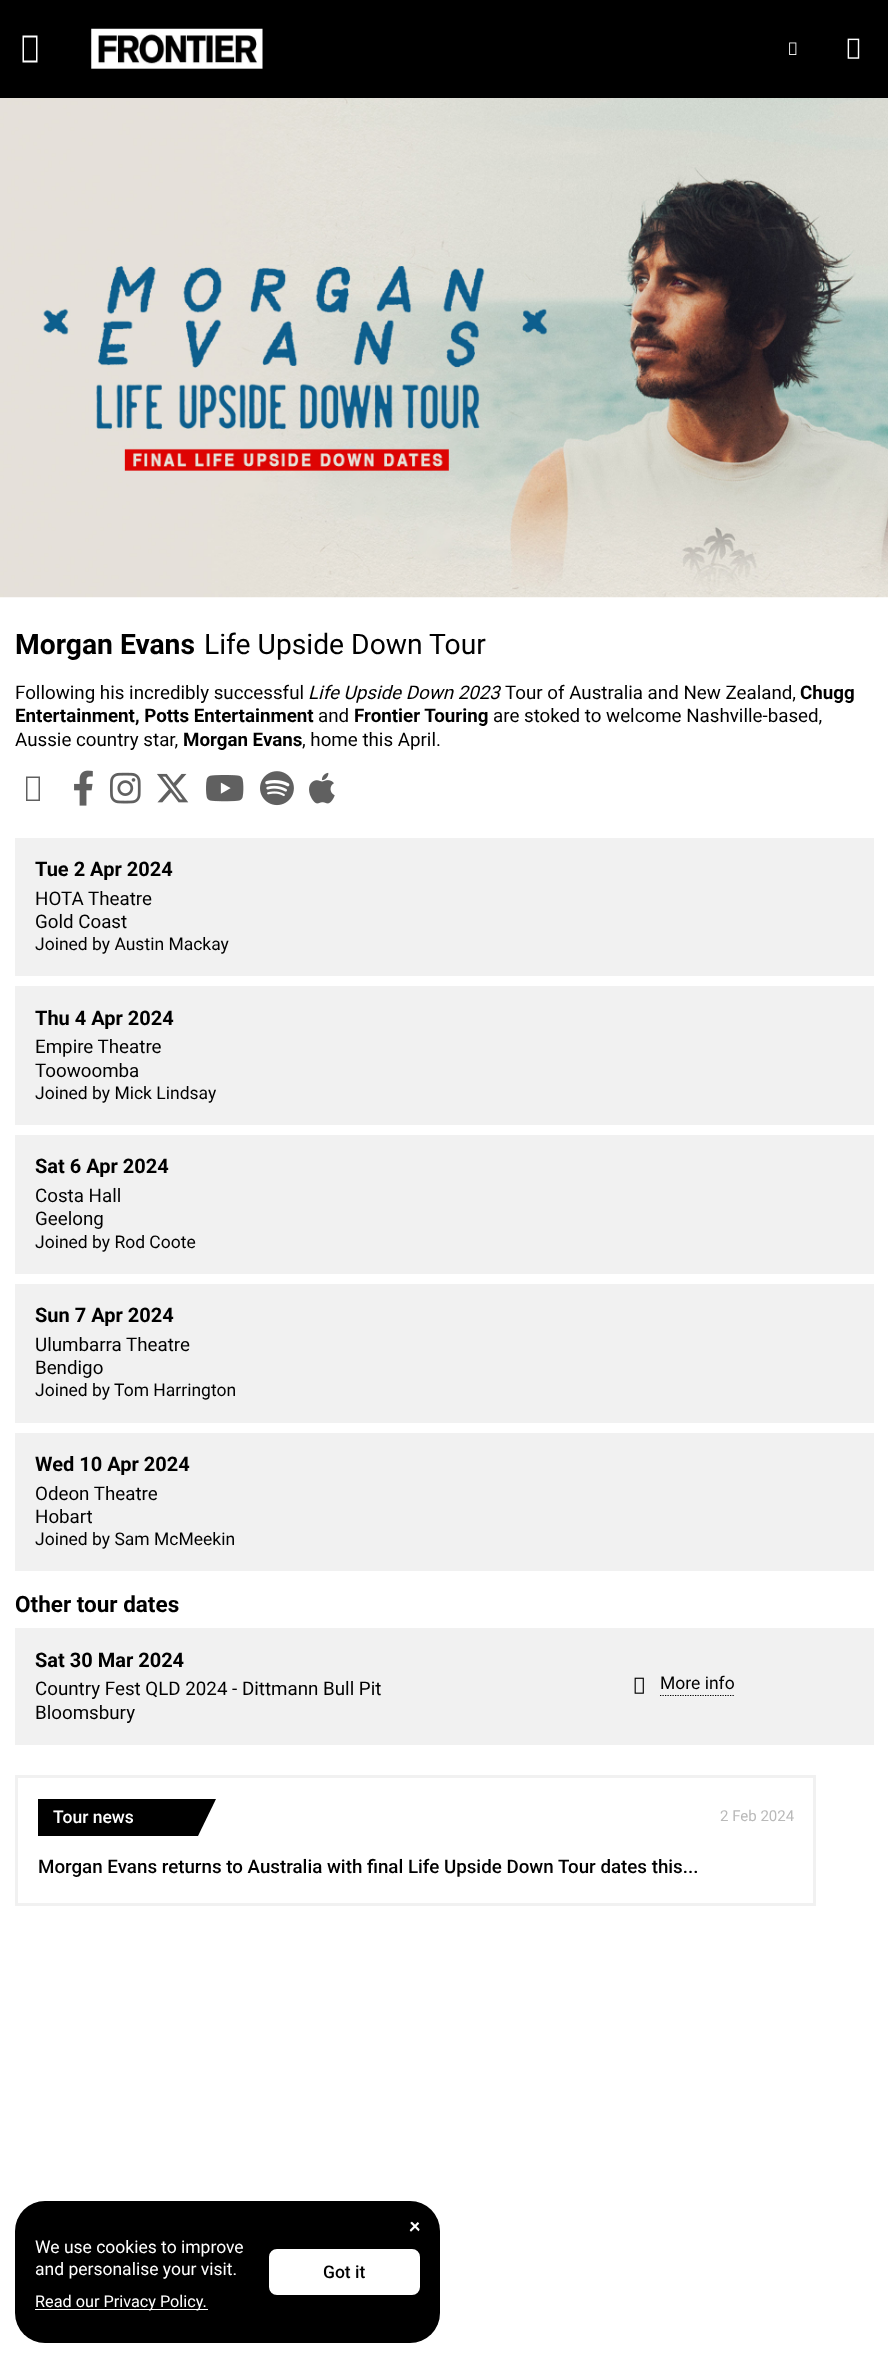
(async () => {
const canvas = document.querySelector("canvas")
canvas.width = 888
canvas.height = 2357
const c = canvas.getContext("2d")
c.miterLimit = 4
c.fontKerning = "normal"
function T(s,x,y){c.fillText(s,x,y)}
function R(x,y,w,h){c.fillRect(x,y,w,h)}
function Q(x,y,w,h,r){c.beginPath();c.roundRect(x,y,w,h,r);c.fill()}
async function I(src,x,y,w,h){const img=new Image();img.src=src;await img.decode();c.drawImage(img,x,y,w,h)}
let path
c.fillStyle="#fff"
R(0,0,888,2357)
c.fillStyle="#000"
R(0,0,888,98)
c.fillStyle="#fff"
path = new Path2D("M22.5 62.5v-27h15v27zm1.5-2h12v-23h-12z")
c.fill(path)
await I("1.png",91,28,172,41)
await I("2.png",789,42,8,13)
await I("3.png",847,38,13,21)
await I("4.png",0,98,888,500)
c.font="bold 28.25px Roboto"
c.fillStyle="#000"
T("Morgan Evans",15,654)
c.font="28.25px Roboto"
T("Life Upside Down Tour",204,654)
c.font="18.75px Roboto"
T("Following his incredibly successful",15,699)
c.font="italic 18.75px Roboto"
T("Life Upside Down 2023",308,699)
c.font="18.75px Roboto"
T("Tour of Australia and New Zealand,",505,699)
c.font="bold 18.75px Roboto"
T("Chugg",800,699)
T("Entertainment, Potts Entertainment",15,722)
c.font="18.75px Roboto"
T("and",318,722)
c.font="bold 18.75px Roboto"
T("Frontier Touring",354,722)
c.font="18.75px Roboto"
T("are stoked to welcome Nashville-based,",493,722)
T("Aussie country star,",15,746)
c.font="bold 18.75px Roboto"
T("Morgan Evans",183,746)
c.font="18.75px Roboto"
T(", home this April.",302,746)
c.fillStyle="#606060"
path = new Path2D("M26 801v-24.5h14v24.5zm1.5-1.5h11v-21.5h-11z")
c.fill(path)
await I("5.png",74,770,19,36)
await I("6.png",110,772,31,32)
await I("7.png",157,773,32,30)
await I("8.png",206,775,38,27)
await I("9.png",260,771,34,35)
await I("10.png",309,772,26,32)
c.fillStyle="#f1f1f1"
R(15,838,859,138)
c.font="bold 20px Roboto"
c.fillStyle="#000"
T("Tue 2 Apr 2024",35,876)
c.font="18.75px Roboto"
T("HOTA Theatre",35,905)
T("Gold Coast",35,928)
c.font="17.5px Roboto"
T("Joined by Austin Mackay",35,950)
c.fillStyle="#f1f1f1"
R(15,986,859,139)
c.font="bold 20px Roboto"
c.fillStyle="#000"
T("Thu 4 Apr 2024",35,1025)
c.font="18.75px Roboto"
T("Empire Theatre",35,1053)
T("Toowoomba",35,1077)
c.font="17.5px Roboto"
T("Joined by Mick Lindsay",35,1099)
c.fillStyle="#f1f1f1"
R(15,1135,859,139)
c.font="bold 20px Roboto"
c.fillStyle="#000"
T("Sat 6 Apr 2024",35,1173)
c.font="18.75px Roboto"
T("Costa Hall",35,1202)
T("Geelong",35,1225)
c.font="17.5px Roboto"
T("Joined by Rod Coote",35,1248)
c.fillStyle="#f1f1f1"
R(15,1284,859,139)
c.font="bold 20px Roboto"
c.fillStyle="#000"
T("Sun 7 Apr 2024",35,1322)
c.font="18.75px Roboto"
T("Ulumbarra Theatre",35,1351)
T("Bendigo",35,1374)
c.font="17.5px Roboto"
T("Joined by Tom Harrington",35,1396)
c.fillStyle="#f1f1f1"
R(15,1433,859,138)
c.font="bold 20px Roboto"
c.fillStyle="#000"
T("Wed 10 Apr 2024",35,1471)
c.font="18.75px Roboto"
T("Odeon Theatre",35,1500)
T("Hobart",35,1523)
c.font="17.5px Roboto"
T("Joined by Sam McMeekin",35,1545)
c.font="bold 22.5px Roboto"
T("Other tour dates",15,1612)
c.fillStyle="#f1f1f1"
R(15,1628,859,117)
c.font="bold 20px Roboto"
c.fillStyle="#000"
T("Sat 30 Mar 2024",35,1667)
c.font="18.75px Roboto"
T("Country Fest QLD 2024 - Dittmann Bull Pit",35,1695)
T("Bloomsbury",35,1719)
await I("11.png",634,1677,10,17)
path = new Path2D("M660 1695.5h74")
c.strokeStyle="#000"
c.lineWidth=1.2
c.setLineDash([1.25,1.25])
c.stroke(path)
c.font="17.5px Roboto"
T("More info",660,1689)
c.strokeStyle="#f1f1f1"
c.lineWidth=3
c.setLineDash([])
c.strokeRect(16.5,1776.5,798,128)
path = new Path2D("M198 1836h-160v-37h178z")
c.fill(path)
c.font="500 17.5px Roboto"
c.fillStyle="#fff"
T("Tour news",53,1823)
c.font="15px Roboto"
c.fillStyle="#b9b9b9"
T("2 Feb 2024",720,1821)
c.font="500 18.75px Roboto"
c.fillStyle="#000"
T("Morgan Evans returns to Australia with final Life Upside Down Tour dates this...",38,1873)
Q(15,2201,425,142,30)
await I("12.png",409,2221,11,11)
c.font="17.5px Roboto"
c.fillStyle="#fff"
T("We use cookies to improve",35,2253)
T("and personalise your visit.",35,2275)
R(35,2309,173,1)
c.font="16.25px Roboto"
T("Read our Privacy Policy.",35,2307)
c.beginPath()
c.roundRect(270.5,2250.5,148,43,6.5)
c.fill()
c.strokeStyle="#fff"
c.stroke()
c.font="500 17.5px Roboto"
c.fillStyle="#000"
T("Got it",323,2278)
})()
